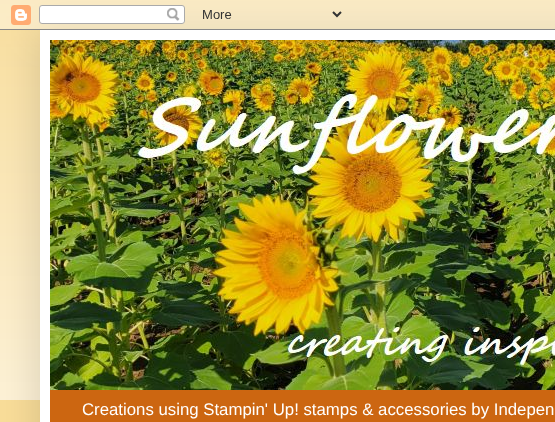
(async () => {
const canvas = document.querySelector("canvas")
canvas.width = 555
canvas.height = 422
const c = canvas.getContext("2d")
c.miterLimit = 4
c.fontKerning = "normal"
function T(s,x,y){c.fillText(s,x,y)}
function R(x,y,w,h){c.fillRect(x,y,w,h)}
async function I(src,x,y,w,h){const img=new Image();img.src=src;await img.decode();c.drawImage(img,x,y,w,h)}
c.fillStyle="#f9dd99"
R(0,0,555,422)
await I("1.png",0,0,555,400)
c.fillStyle="#00000026"
c.filter="blur(20px)"
c.beginPath()
c.rect(40,30,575,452)
c.fill()
c.filter="none"
await I("2.png",0,0,555,30)
c.fillStyle="#fff"
R(40,30,515,392)
c.fillStyle="#c61"
R(50,390,505,32)
await I("3.png",50,40,505,350)
c.font="16.8px Liberation Sans"
c.fillStyle="#fff"
T("Creations using Stampin' Up! stamps & accessories by Indepen",82,415)
})()
